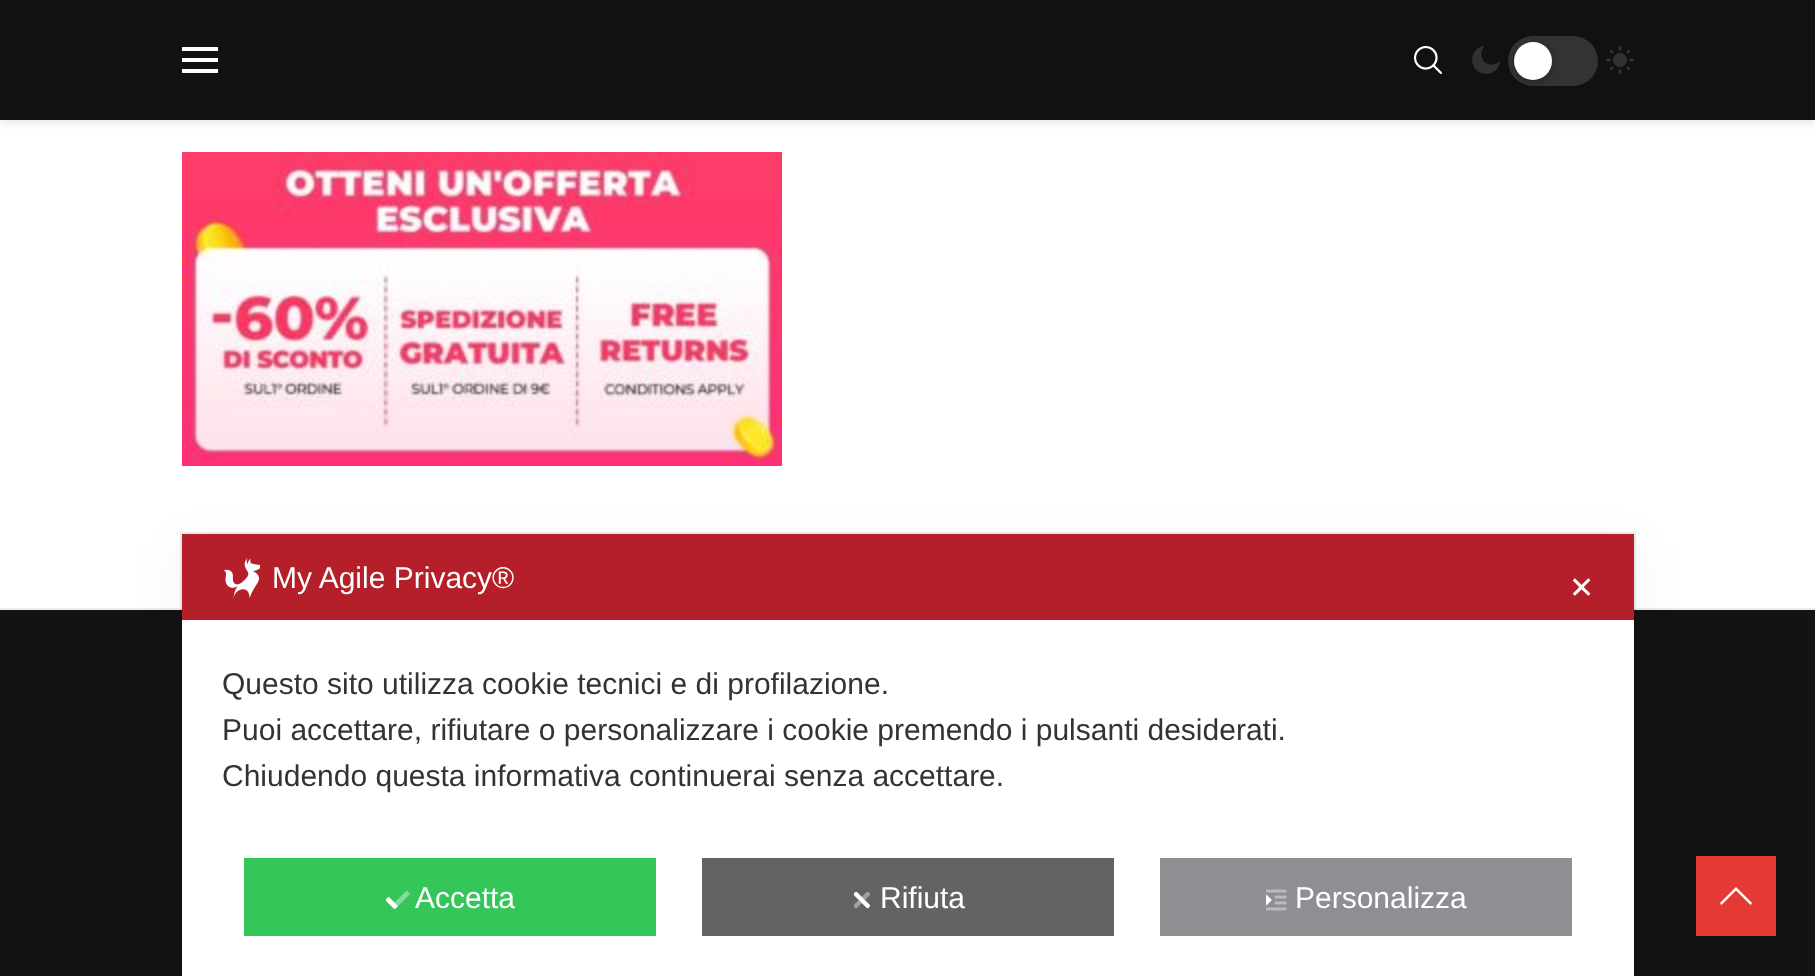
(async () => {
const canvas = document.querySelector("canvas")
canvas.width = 1815
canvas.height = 976
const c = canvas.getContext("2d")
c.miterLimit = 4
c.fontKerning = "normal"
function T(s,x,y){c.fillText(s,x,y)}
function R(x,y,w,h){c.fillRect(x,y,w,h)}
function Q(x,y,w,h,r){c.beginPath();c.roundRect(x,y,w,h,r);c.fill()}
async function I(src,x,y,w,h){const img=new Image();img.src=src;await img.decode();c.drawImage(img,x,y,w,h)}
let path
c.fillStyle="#fff"
R(0,0,1815,976)
c.fillStyle="#bebebe75"
c.filter="blur(5px)"
c.beginPath()
c.rect(0,2,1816,120)
c.fill()
c.filter="none"
c.fillStyle="#111"
R(0,0,1815,120)
c.fillStyle="#fff"
R(182,47,36,4)
R(182,58,36,4)
R(182,69,36,4)
await I("1.png",1414,46,28,28)
await I("2.png",1472,46,28,28)
c.fillStyle="#333"
Q(1508,36,90,50,25)
c.fillStyle="#0000004d"
c.filter="blur(3px)"
c.beginPath()
c.roundRect(1514,44,38,38,19)
c.fill()
c.filter="none"
c.fillStyle="#fff"
c.beginPath()
c.arc(1533,61,19,0,7)
c.fill()
await I("3.png",1606,46,28,28)
await I("4.png",182,152,600,314)
c.fillStyle="#131313"
R(0,610,1815,366)
c.fillStyle="#ececec"
R(0,608,1815,2)
c.strokeStyle="#00000014"
c.lineWidth=2
c.strokeRect(181,533,1454,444)
c.fillStyle="#e53935"
R(1696,856,80,80)
c.fillStyle="#0000000d"
c.filter="blur(24px)"
c.beginPath()
c.rect(182,546,1452,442)
c.fill()
c.filter="none"
c.fillStyle="#fff"
R(182,620,1452,356)
c.fillStyle="#b41f29"
R(182,534,1452,86)
await I("5.png",223,558,37,40)
c.font="30px Liberation Sans"
c.fillStyle="#fff"
T("My Agile Privacy®",272,588)
c.font="30px DejaVu Sans"
T("✕",1569,598)
c.font="30px Liberation Sans"
c.fillStyle="#333"
T("Questo sito utilizza cookie tecnici e di profilazione.",222,694)
T("Puoi accettare, rifiutare o personalizzare i cookie premendo i pulsanti desiderati.",222,740)
T("Chiudendo questa informativa continuerai senza accettare.",222,786)
c.fillStyle="#34c659"
R(244,858,412,78)
await I("6.png",386,891,24,18)
c.fillStyle="#fff"
T("Accetta",415,908)
c.fillStyle="#636366"
R(702,858,412,78)
await I("7.png",854,891,16,18)
c.fillStyle="#fff"
T("Rifiuta",880,908)
c.fillStyle="#8e8e93"
R(1160,858,412,78)
await I("8.png",1266,889,21,22)
c.fillStyle="#fff"
T("Personalizza",1295,908)
path = new Path2D("M1736 887l-16 16l1.5 2l14.5-14.5l14.5 14.5l1.5-2z")
c.fill(path)
})()
